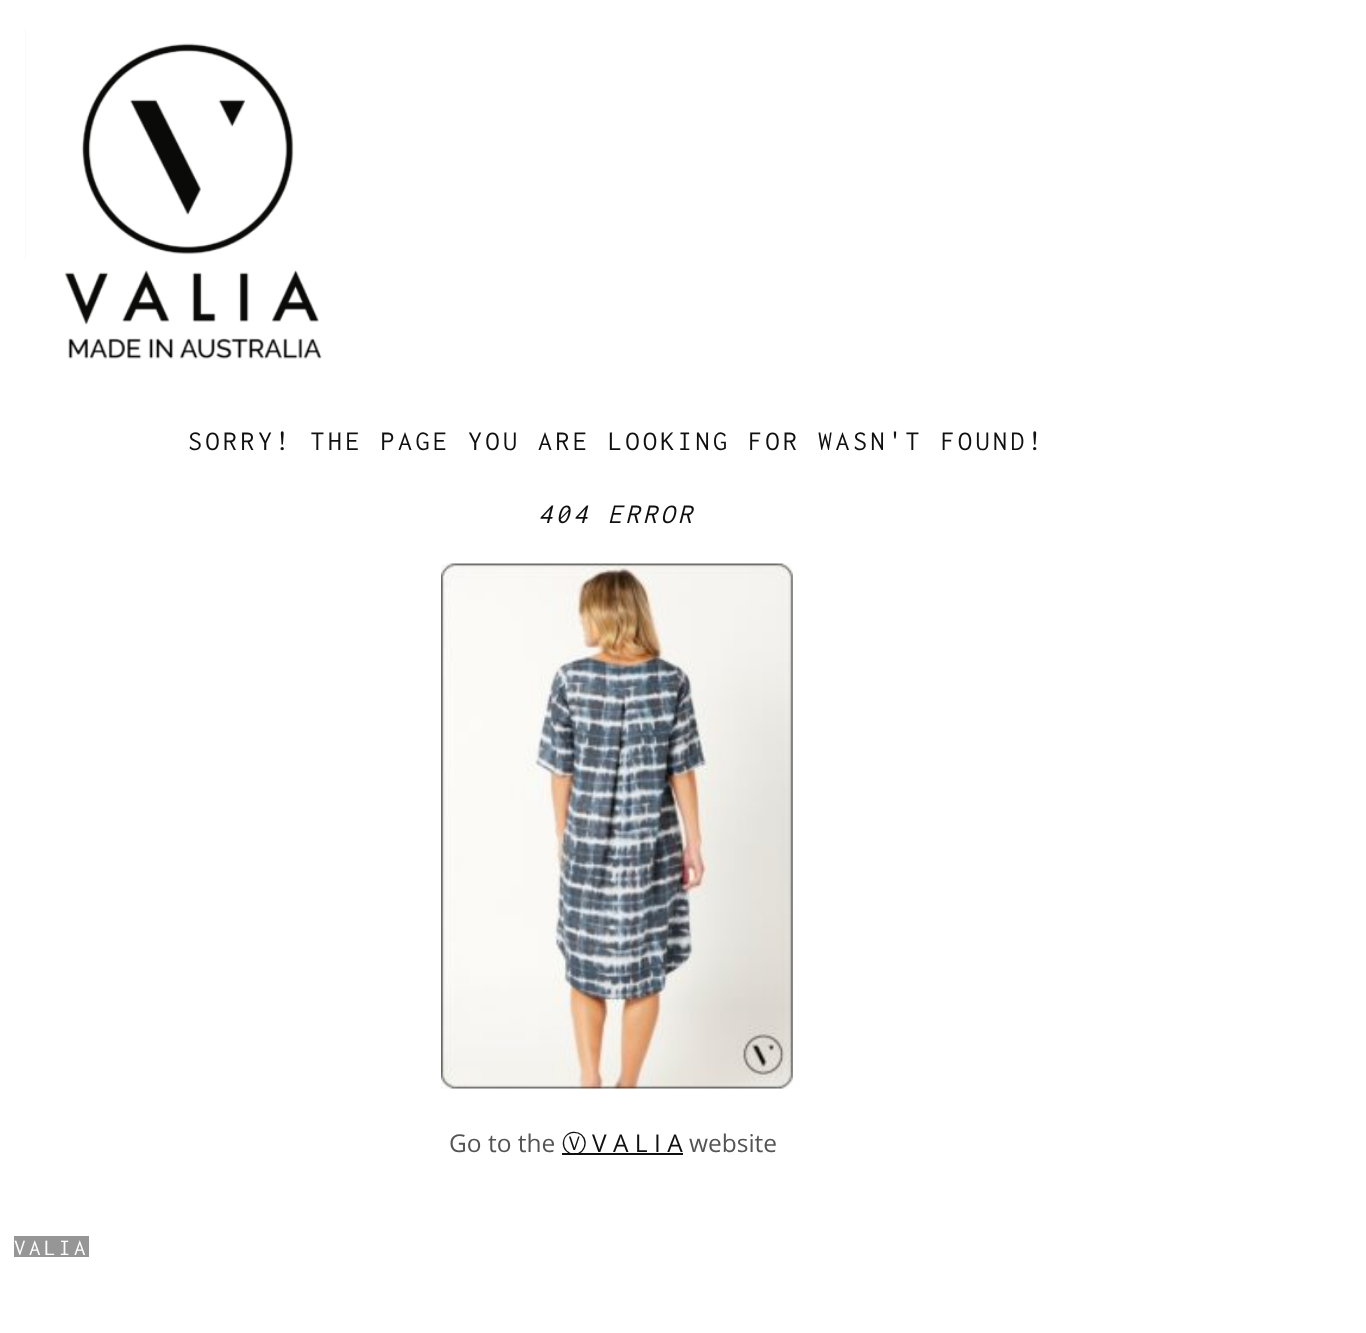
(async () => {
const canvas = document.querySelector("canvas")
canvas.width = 1366
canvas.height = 1333
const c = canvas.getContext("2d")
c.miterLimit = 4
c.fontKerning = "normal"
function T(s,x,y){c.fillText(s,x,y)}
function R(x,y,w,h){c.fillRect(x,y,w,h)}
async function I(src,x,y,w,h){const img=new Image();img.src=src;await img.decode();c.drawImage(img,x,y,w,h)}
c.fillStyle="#fff"
R(0,0,1366,1333)
await I("1.png",25,27,297,332)
c.letterSpacing="3.5px"
c.font="28px Inconsolata"
c.fillStyle="#101010"
T("SORRY! THE PAGE YOU ARE LOOKING FOR WASN'T FOUND!",188,450)
c.font="italic 28px Inconsolata"
T("404 ERROR",538,523)
await I("2.png",441,563,352,526)
c.letterSpacing="0px"
c.font="24.5px Open Sans"
c.fillStyle="#545454"
T("Go to the",449,1152)
c.fillStyle="#101010"
R(562,1153,121,2)
c.font="500 24.5px WenQuanYi Zen Hei"
T("Ⓥ",562,1152)
c.font="24.5px Open Sans"
T("V A L I A",592,1152)
c.fillStyle="#545454"
T("website",689,1152)
c.fillStyle="#969696"
R(14,1236,75,21)
c.letterSpacing="3.5px"
c.font="23px Inconsolata"
c.fillStyle="#fff"
T("VALIA",14,1255)
})()
